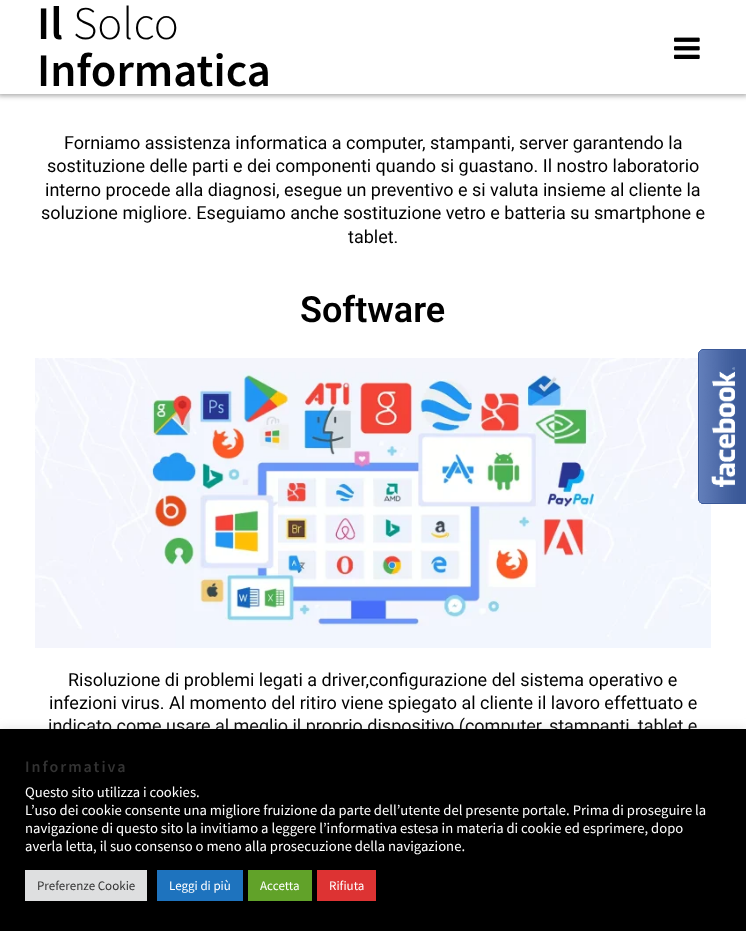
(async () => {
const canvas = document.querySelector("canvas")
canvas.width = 746
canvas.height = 931
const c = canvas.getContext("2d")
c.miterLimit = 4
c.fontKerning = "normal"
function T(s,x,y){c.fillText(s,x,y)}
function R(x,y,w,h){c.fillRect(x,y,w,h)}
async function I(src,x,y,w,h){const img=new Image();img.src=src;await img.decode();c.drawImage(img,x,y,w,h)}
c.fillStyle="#fff"
R(0,0,746,931)
c.fillStyle="#00000054"
c.filter="blur(2.5px)"
c.beginPath()
c.rect(-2,-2,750,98)
c.fill()
c.filter="none"
c.fillStyle="#fff"
R(0,0,746,94)
c.font="600 46.75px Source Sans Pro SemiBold"
c.fillStyle="#000"
T("Il",37,39)
c.font="300 46.75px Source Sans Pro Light"
T("Solco",73,39)
c.font="600 46.75px Source Sans Pro SemiBold"
T("Informatica",37,86)
await I("1.png",674,37,26,22)
c.font="18px Roboto"
T("Forniamo assistenza informatica a computer, stampanti, server garantendo la",64,149)
T("sostituzione delle parti e dei componenti quando si guastano. Il nostro laboratorio",47,172)
T("interno procede alla diagnosi, esegue un preventivo e si valuta insieme al cliente la",45,196)
T("soluzione migliore. Eseguiamo anche sostituzione vetro e batteria su smartphone e",41,219)
T("tablet.",348,243)
c.font="600 36px Roboto"
T("Software",300,322)
await I("2.png",35,358,676,290)
c.font="18px Roboto"
T("Risoluzione di problemi legati a driver,configurazione del sistema operativo e",68,686)
T("infezioni virus. Al momento del ritiro viene spiegato al cliente il lavoro effettuato e",49,709)
T("indicato come usare al meglio il proprio dispositivo (computer, stampanti, tablet e",48,732)
await I("3.png",698,349,48,155)
c.fillStyle="#acabab4d"
c.filter="blur(5px)"
c.beginPath()
c.rect(0,728,746,202)
c.fill()
c.filter="none"
c.fillStyle="#000"
R(0,729,746,202)
c.letterSpacing="2px"
c.font="600 16px Source Sans Pro SemiBold"
c.fillStyle="#333"
T("Informativa",25,772)
c.letterSpacing="0px"
c.font="14.65px Source Sans Pro"
c.fillStyle="#fff"
T("Questo sito utilizza i cookies.",25,797)
T("L’uso dei cookie consente una migliore fruizione da parte dell’utente del presente portale. Prima di proseguire la",25,815)
T("navigazione di questo sito la invitiamo a leggere l’informativa estesa in materia di cookie ed esprimere, dopo",25,833)
T("averla letta, il suo consenso o meno alla prosecuzione della navigazione.",25,851)
c.fillStyle="#dedfe0"
R(25,870,122,31)
c.font="13px Source Sans Pro"
c.fillStyle="#333"
T("Preferenze Cookie",37,890)
c.fillStyle="#1e73be"
R(157,870,86,31)
c.fillStyle="#fff"
T("Leggi di più",169,890)
c.fillStyle="#61a229"
R(248,870,64,31)
c.fillStyle="#fff"
T("Accetta",260,890)
c.fillStyle="#d33"
R(317,870,59,31)
c.fillStyle="#fff"
T("Rifiuta",329,890)
})()
